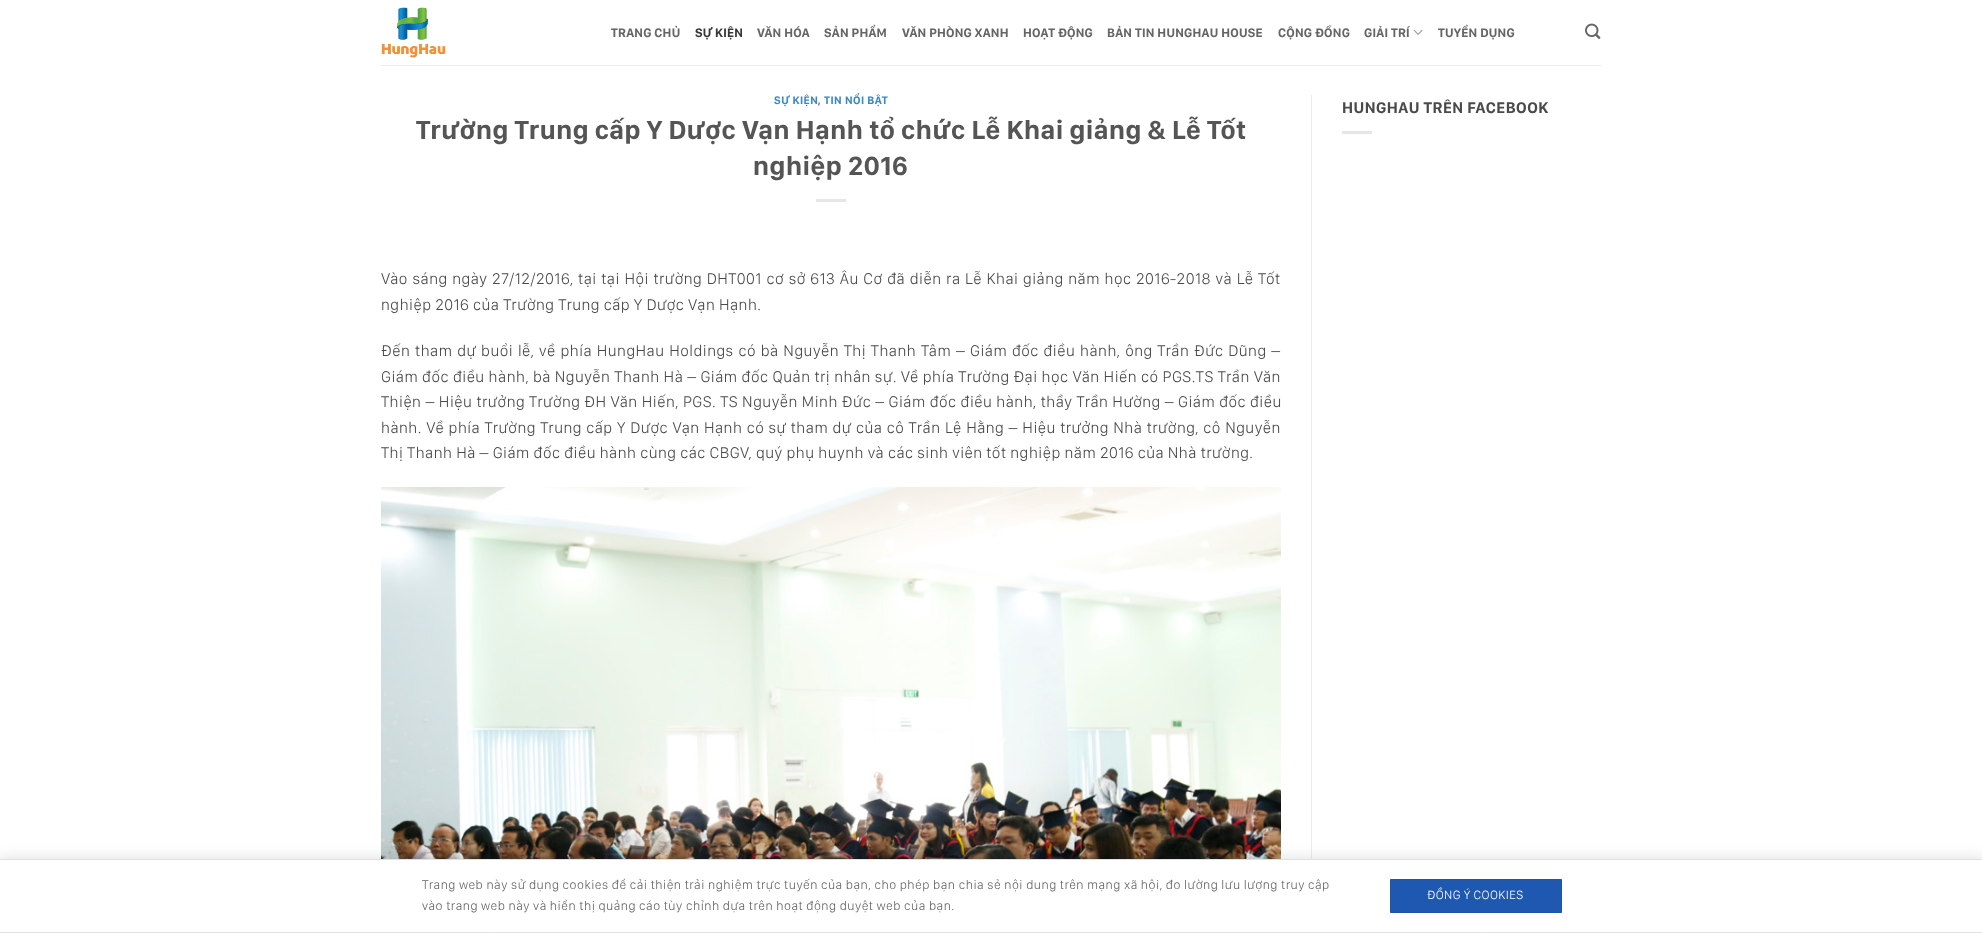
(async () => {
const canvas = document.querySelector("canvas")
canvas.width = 1982
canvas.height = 933
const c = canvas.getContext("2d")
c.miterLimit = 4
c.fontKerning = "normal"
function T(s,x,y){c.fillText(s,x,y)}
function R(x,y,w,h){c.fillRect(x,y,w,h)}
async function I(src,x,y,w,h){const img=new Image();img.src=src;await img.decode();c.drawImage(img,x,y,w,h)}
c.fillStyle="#fff"
R(0,0,1982,933)
await I("1.png",381,7,65,51)
c.letterSpacing="0.25px"
c.font="bold 12.75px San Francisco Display"
c.fillStyle="#656565"
T("TRANG CHỦ",611,37)
c.fillStyle="#363636"
T("SỰ KIỆN",695,37)
c.fillStyle="#656565"
T("VĂN HÓA",757,37)
T("SẢN PHẨM",824,37)
T("VĂN PHÒNG XANH",902,37)
T("HOẠT ĐỘNG",1023,37)
T("BẢN TIN HUNGHAU HOUSE",1107,37)
T("CỘNG ĐỒNG",1278,37)
T("GIẢI TRÍ",1364,37)
await I("2.png",1413,29,10,6)
T("TUYỂN DỤNG",1438,37)
await I("3.png",1585,23,16,16)
c.fillStyle="#ededed"
R(381,65,1220,1)
c.letterSpacing="0.5px"
c.font="bold 11.25px San Francisco Display"
c.fillStyle="#3c88c1"
T("SỰ KIỆN",774,104)
c.fillStyle="#777"
T(",",818,104)
c.fillStyle="#3c88c1"
T("TIN NỔI BẬT",824,104)
c.font="bold 27.2px San Francisco Display"
c.fillStyle="#555"
T("Trường Trung cấp Y Dược Vạn Hạnh tổ chức Lễ Khai giảng & Lễ Tốt",416,139)
T("nghiệp 2016",753,175)
c.fillStyle="#e6e6e6"
R(816,199,30,3)
c.wordSpacing="0.85px"
c.font="300 16px San Francisco Display"
c.fillStyle="#4a4a4a"
T("Vào sáng ngày 27/12/2016, tại tại Hội trường DHT001 cơ sở 613 Âu Cơ đã diễn ra Lễ Khai giảng năm học 2016-2018 và Lễ Tốt",381,284)
c.wordSpacing="0px"
T("nghiệp 2016 của Trường Trung cấp Y Dược Vạn Hạnh.",381,310)
c.wordSpacing="1px"
T("Đến tham dự buổi lễ, về phía HungHau Holdings có bà Nguyễn Thị Thanh Tâm – Giám đốc điều hành, ông Trần Đức Dũng –",381,356)
c.wordSpacing="0.2px"
T("Giám đốc điều hành, bà Nguyễn Thanh Hà – Giám đốc Quản trị nhân sự. Về phía Trường Đại học Văn Hiến có PGS.TS Trần Văn",381,382)
c.wordSpacing="0.25px"
T("Thiện – Hiệu trưởng Trường ĐH Văn Hiến, PGS. TS Nguyễn Minh Đức – Giám đốc điều hành, thầy Trần Hường – Giám đốc điều",381,407)
c.wordSpacing="0.6px"
T("hành. Về phía Trường Trung cấp Y Dược Vạn Hạnh có sự tham dự của cô Trần Lệ Hằng – Hiệu trưởng Nhà trường, cô Nguyễn",381,433)
c.wordSpacing="0px"
T("Thị Thanh Hà – Giám đốc điều hành cùng các CBGV, quý phụ huynh và các sinh viên tốt nghiệp năm 2016 của Nhà trường.",381,458)
await I("4.png",381,487,900,372)
c.fillStyle="#ececec"
R(1311,95,1,764)
c.font="bold 16px San Francisco Display"
c.fillStyle="#4a4a4a"
T("HUNGHAU TRÊN FACEBOOK",1342,113)
c.fillStyle="#e6e6e6"
R(1342,131,30,3)
c.fillStyle="#242f424f"
c.filter="blur(10px)"
c.beginPath()
c.rect(-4,865,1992,62)
c.fill()
c.filter="none"
c.fillStyle="#fff"
c.beginPath()
c.rect(-.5,859.5,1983,73)
c.fill()
c.strokeStyle="#e1e1e1"
c.stroke()
c.font="300 13px San Francisco Display"
c.fillStyle="#656565"
T("Trang web này sử dụng cookies để cải thiện trải nghiệm trực tuyến của bạn, cho phép bạn chia sẻ nội dung trên mạng xã hội, đo lường lưu lượng truy cập",422,889)
T("vào trang web này và hiển thị quảng cáo tùy chỉnh dựa trên hoạt động duyệt web của bạn.",422,910)
c.fillStyle="#1e58b1"
c.beginPath()
c.rect(1390.5,879.5,171,33)
c.fill()
c.strokeStyle="#1d54a8"
c.stroke()
c.letterSpacing="0.4px"
c.font="300 12.5px San Francisco Display"
c.fillStyle="#fff"
T("ĐỒNG Ý COOKIES",1427,899)
})()
